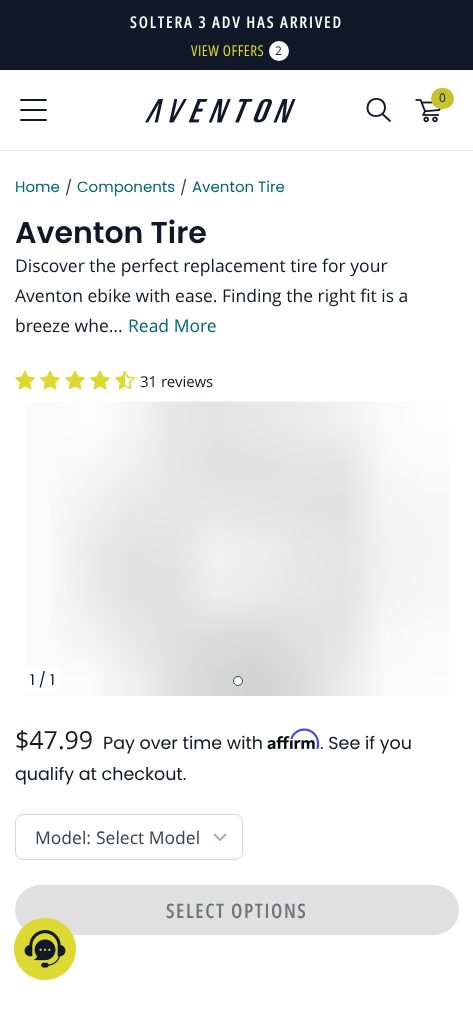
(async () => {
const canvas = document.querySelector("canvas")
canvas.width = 473
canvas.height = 1009
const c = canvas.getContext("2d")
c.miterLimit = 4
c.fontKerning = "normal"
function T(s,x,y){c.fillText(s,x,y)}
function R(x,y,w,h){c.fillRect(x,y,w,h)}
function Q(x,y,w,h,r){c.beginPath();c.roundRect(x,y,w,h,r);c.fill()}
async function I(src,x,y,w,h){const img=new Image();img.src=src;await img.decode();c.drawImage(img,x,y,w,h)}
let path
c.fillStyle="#fff"
R(0,0,473,1009)
c.fillStyle="#111827"
R(0,0,473,70)
c.letterSpacing="1.75px"
c.font="600 16.25px Open Sans Condensed"
c.fillStyle="#fff"
T("SOLTERA 3 ADV HAS ARRIVED",130,28)
c.letterSpacing="0.5px"
c.font="15px Open Sans Condensed"
c.fillStyle="#dcd932"
T("VIEW OFFERS",191,56)
c.fillStyle="#fff"
c.beginPath()
c.arc(279,51,10,0,7)
c.fill()
c.letterSpacing="-1px"
c.font="12px Open Sans"
c.fillStyle="#111827"
T("2",275,55)
c.fillStyle="#e5e7eb"
R(0,150,473,1)
path = new Path2D("M390 121l-7.5-7m2.5-6.5c0 11.5-18 11.5-17.5 0c.5-11.5 17.5-11.5 17.5 0z")
c.strokeStyle="#111827"
c.lineWidth=1.8
c.lineCap="round"
c.lineJoin="round"
c.stroke(path)
await I("1.png",415,99,26,24)
c.fillStyle="#c6c32d"
Q(431,88,23,21,10.5)
c.letterSpacing="0px"
c.fillStyle="#111827"
T("0",439,102)
path = new Path2D("M21 100h25m-25 10h25m-25 10h25")
c.stroke(path)
await I("2.png",145,99,151,24)
c.font="15px Poppins"
c.fillStyle="#036672"
T("Home",15,192)
c.fillStyle="#374151"
T("/",65,193)
c.fillStyle="#036672"
T("Components",77,192)
c.fillStyle="#374151"
T("/",180,193)
c.fillStyle="#036672"
T("Aventon Tire",192,192)
c.font="600 30px Poppins"
c.fillStyle="#111827"
T("Aventon Tire",15,243)
c.font="17.5px Open Sans"
T("Discover the perfect replacement tire for your",15,272)
T("Aventon ebike with ease. Finding the right fit is a",15,302)
T("breeze whe...",15,332)
c.fillStyle="#036672"
T("Read More",128,332)
await I("3.png",15,370,20,20)
await I("3.png",40,370,20,20)
await I("3.png",65,370,20,20)
await I("3.png",90,370,20,20)
await I("4.png",115,370,20,20)
c.font="15px Open Sans"
c.fillStyle="#111827"
T("31 reviews",140,387)
await I("5.png",25,401,424,295)
c.fillStyle="#fefefe"
Q(25,666,35,25,5)
c.font="15px Poppins"
c.fillStyle="#111827"
T("1 / 1",30,685)
c.fillStyle="#fff"
c.beginPath()
c.arc(238,681,4.5,0,7)
c.fill()
c.strokeStyle="#374151"
c.lineWidth=1
c.stroke()
c.font="25px Open Sans"
c.fillStyle="#111827"
T("$47.99",15,749)
c.font="17.5px Poppins"
T("Pay over time with",103,749)
await I("7.png",267,736,48,14)
await I("6.png",290,728,30,21)
T(". See if you",320,749)
T("qualify at checkout.",15,780)
c.beginPath()
c.roundRect(15.5,814.5,227,45,7.5)
c.strokeStyle="#d1d5db"
c.lineJoin="miter"
c.stroke()
c.font="17.5px Open Sans"
c.fillStyle="#374151"
T("Model:",35,844)
T("Select Model",96,844)
await I("8.png",213,833,14,8)
c.fillStyle="#e0e0e0"
Q(15,885,444,50,25)
c.letterSpacing="1.6px"
c.font="600 20px Open Sans Condensed"
c.fillStyle="#70747d"
T("SELECT OPTIONS",166,918)
await I("9.png",14,918,62,62)
})()
